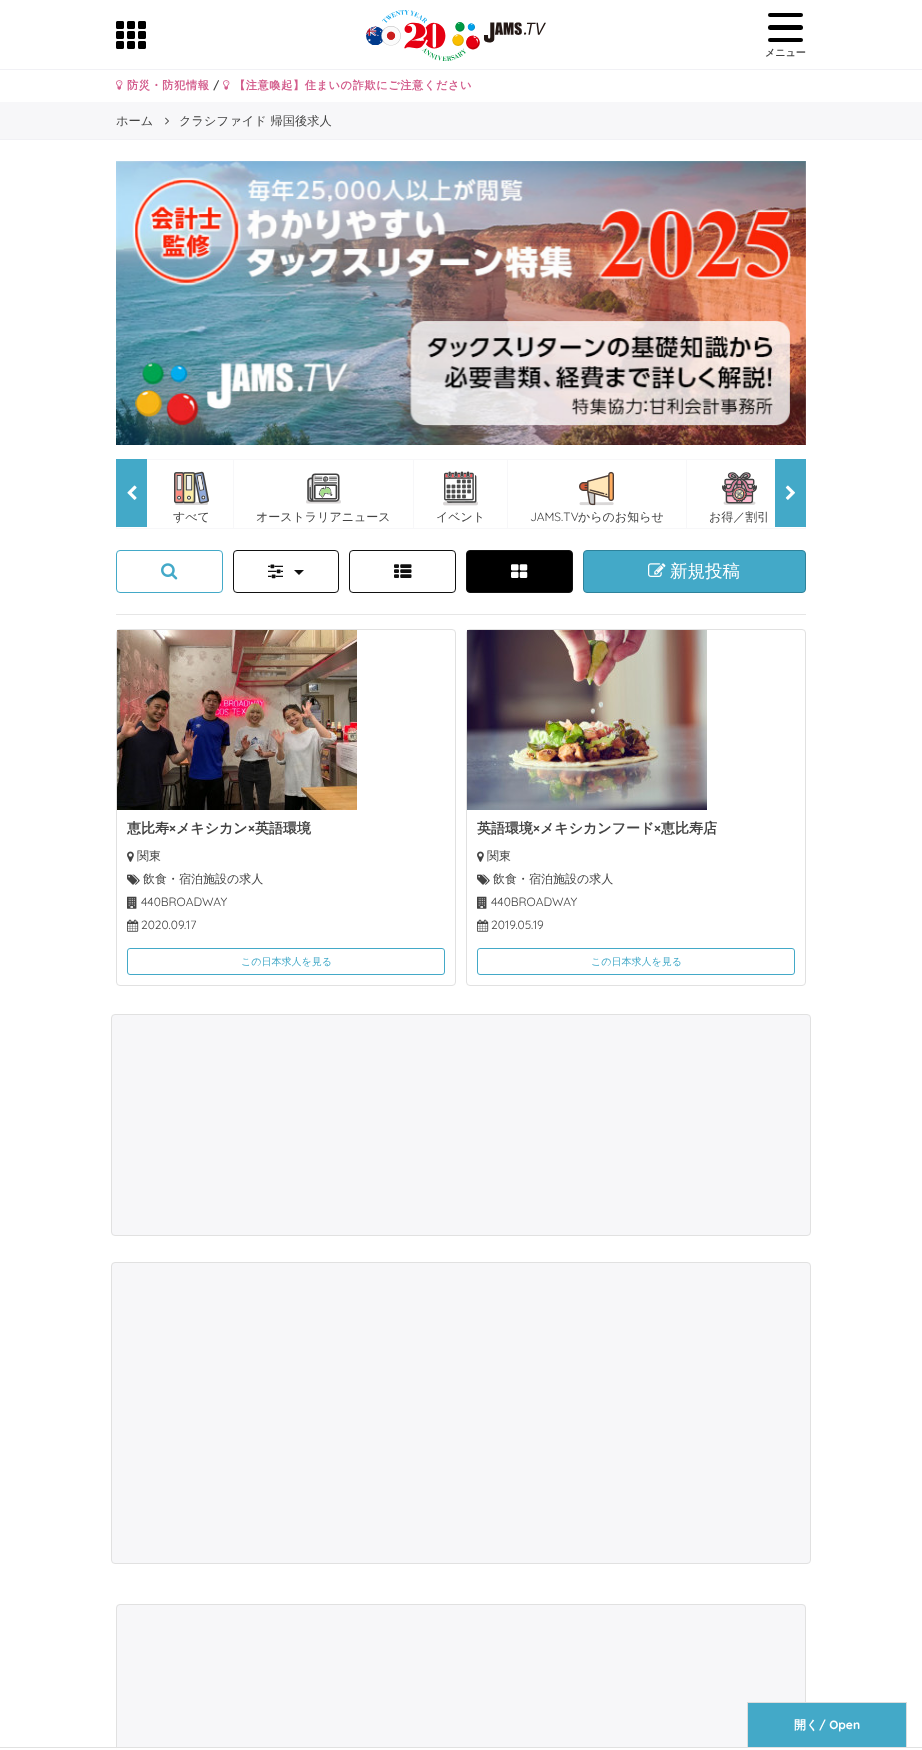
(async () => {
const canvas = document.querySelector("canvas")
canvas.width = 922
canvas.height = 1750
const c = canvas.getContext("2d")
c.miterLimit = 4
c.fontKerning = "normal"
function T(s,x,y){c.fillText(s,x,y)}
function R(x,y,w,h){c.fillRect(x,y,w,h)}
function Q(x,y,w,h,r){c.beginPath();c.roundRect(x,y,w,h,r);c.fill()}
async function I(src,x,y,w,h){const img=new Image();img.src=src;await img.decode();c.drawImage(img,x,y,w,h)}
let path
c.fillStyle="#fff"
R(0,0,922,1750)
c.fillStyle="#f1f1f5"
R(0,69,922,1)
await I("1.png",116,21,30,28)
await I("2.png",366,10,180,51)
c.fillStyle="#000"
Q(768,13,35,4,2)
Q(768,25,35,5,2.5)
Q(768,38,35,4,2)
c.font="bold 10px WenQuanYi Zen Hei"
c.fillStyle="#434343"
T("メニュー",765,56)
await I("3.png",116,80,7,10)
c.letterSpacing="0.6px"
c.font="bold 11.2px WenQuanYi Zen Hei"
c.fillStyle="#d35c8c"
T("防災・防犯情報",127,89)
c.font="bold 11.2px Quicksand"
c.fillStyle="#434343"
T("/",213,89)
await I("3.png",223,80,7,10)
c.font="bold 11.2px WenQuanYi Zen Hei"
c.fillStyle="#d35c8c"
T("【注意喚起】住まいの詐欺にご注意ください",234,89)
c.fillStyle="#f7f7f9"
R(0,102,922,37)
c.fillStyle="#f1f1f5"
R(0,139,922,1)
c.letterSpacing="0px"
c.font="500 12.25px WenQuanYi Zen Hei"
c.fillStyle="#434343"
T("ホーム",116,125)
await I("4.png",165,117,4,8)
T("クラシファイド 帰国後求人",179,125)
await I("5.png",116,161,690,284)
c.strokeStyle="#f7f7f9"
c.strokeRect(116.5,459.5,689,69)
c.fillStyle="#43a9c8"
R(116,459,31,68)
await I("6.png",127,485,10,15)
c.fillStyle="#f7f7f9"
R(233,460,1,68)
await I("7.png",174,471,35,34)
c.font="500 12px WenQuanYi Zen Hei"
c.fillStyle="#434343"
T("すべて",173,521)
c.fillStyle="#f7f7f9"
R(413,460,1,68)
await I("8.png",306,473,35,31)
c.fillStyle="#434343"
T("オーストラリアニュース",256,521)
c.fillStyle="#f7f7f9"
R(507,460,1,68)
await I("9.png",443,471,35,35)
c.fillStyle="#434343"
T("イベント",436,521)
c.fillStyle="#f7f7f9"
R(686,460,1,68)
await I("10.png",579,471,35,35)
c.font="12px Quicksand"
c.fillStyle="#434343"
T("JAMS.TV",530,521)
c.font="500 12px WenQuanYi Zen Hei"
T("からのお知らせ",578,521)
await I("11.png",722,472,35,33)
T("お得／割引",709,521)
c.fillStyle="#43a9c8"
R(775,459,31,68)
await I("12.png",785,485,10,15)
c.beginPath()
c.roundRect(116.5,550.5,106,42,3.5)
c.strokeStyle="#43a9c8"
c.stroke()
await I("13.png",161,563,17,17)
c.beginPath()
c.roundRect(233.5,550.5,105,42,3.5)
c.strokeStyle="#111"
c.stroke()
await I("14.png",268,564,15,15)
c.fillStyle="#111"
path = new Path2D("M294 570h10l-5 5z")
c.fill(path)
c.beginPath()
c.roundRect(349.5,550.5,106,42,3.5)
c.stroke()
await I("15.png",394,564,18,14)
c.fillStyle="#000"
c.beginPath()
c.roundRect(466.5,550.5,106,42,3.5)
c.fill()
c.stroke()
await I("16.png",511,564,17,14)
c.fillStyle="#43a9c8"
c.beginPath()
c.roundRect(583.5,550.5,222,42,3.5)
c.fill()
c.strokeStyle="#2d829b"
c.stroke()
await I("17.png",648,563,18,14)
c.font="500 17.5px WenQuanYi Zen Hei"
c.fillStyle="#fff"
T("新規投稿",670,577)
c.fillStyle="#e6e6e6"
R(116,614,690,1)
c.beginPath()
c.roundRect(116.5,629.5,339,356,3.5)
c.strokeStyle="#e1e1e1"
c.stroke()
await I("18.png",117,630,240,180)
c.font="bold 14px WenQuanYi Zen Hei"
c.fillStyle="#434343"
T("恵比寿",127,833)
c.font="bold 14px Quicksand"
T("×",169,833)
c.font="bold 14px WenQuanYi Zen Hei"
T("メキシカン",176,833)
c.font="bold 14px Quicksand"
T("×",248,833)
c.font="bold 14px WenQuanYi Zen Hei"
T("英語環境",255,833)
await I("19.png",127,851,7,11)
c.font="500 12px WenQuanYi Zen Hei"
T("関東",137,860)
await I("20.png",127,874,13,11)
T("飲食・宿泊施設の求人",143,883)
await I("21.png",127,896,10,13)
c.font="12px Quicksand"
T("440BROADWAY",141,906)
await I("22.png",127,919,12,13)
T("2020.09.17",141,929)
c.beginPath()
c.roundRect(127.5,948.5,317,26,2.5)
c.strokeStyle="#43a9c8"
c.stroke()
c.font="500 10px WenQuanYi Zen Hei"
c.fillStyle="#43a9c8"
T("この日本求人を見る",241,965)
c.beginPath()
c.roundRect(466.5,629.5,339,356,3.5)
c.strokeStyle="#e1e1e1"
c.stroke()
await I("23.png",467,630,240,180)
c.font="bold 14px WenQuanYi Zen Hei"
c.fillStyle="#434343"
T("英語環境",477,833)
c.font="bold 14px Quicksand"
T("×",533,833)
c.font="bold 14px WenQuanYi Zen Hei"
T("メキシカンフード",540,833)
c.font="bold 14px Quicksand"
T("×",654,833)
c.font="bold 14px WenQuanYi Zen Hei"
T("恵比寿店",661,833)
await I("19.png",477,851,7,11)
c.font="500 12px WenQuanYi Zen Hei"
T("関東",487,860)
await I("20.png",477,874,13,11)
T("飲食・宿泊施設の求人",493,883)
await I("21.png",477,896,10,13)
c.font="12px Quicksand"
T("440BROADWAY",491,906)
await I("22.png",477,919,12,13)
T("2019.05.19",491,929)
c.beginPath()
c.roundRect(477.5,948.5,317,26,2.5)
c.strokeStyle="#43a9c8"
c.stroke()
c.font="500 10px WenQuanYi Zen Hei"
c.fillStyle="#43a9c8"
T("この日本求人を見る",591,965)
c.fillStyle="#f7f7f9"
c.beginPath()
c.roundRect(111.5,1014.5,699,221,3.5)
c.fill()
c.strokeStyle="#e1e1e1"
c.stroke()
c.beginPath()
c.roundRect(111.5,1262.5,699,301,3.5)
c.fill()
c.stroke()
c.beginPath()
c.roundRect(116,1604,690,146,[4,4,0,0])
c.fill()
c.beginPath()
c.roundRect(116.5,1604.5,689,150,3.5)
c.stroke()
c.fillStyle="#fffffff5"
R(116,1748,690,2)
c.fillStyle="#e1e1e1"
R(0,1747,922,1)
c.fillStyle="#43a9c8"
R(748,1703,158,44)
c.fillStyle="#ddd"
R(747,1702,160,1)
R(906,1702,1,45)
R(747,1702,1,45)
c.font="bold 12px WenQuanYi Zen Hei"
c.fillStyle="#fff"
T("開く",794,1729)
c.font="bold 12px Quicksand"
T("/ Open",819,1729)
})()
